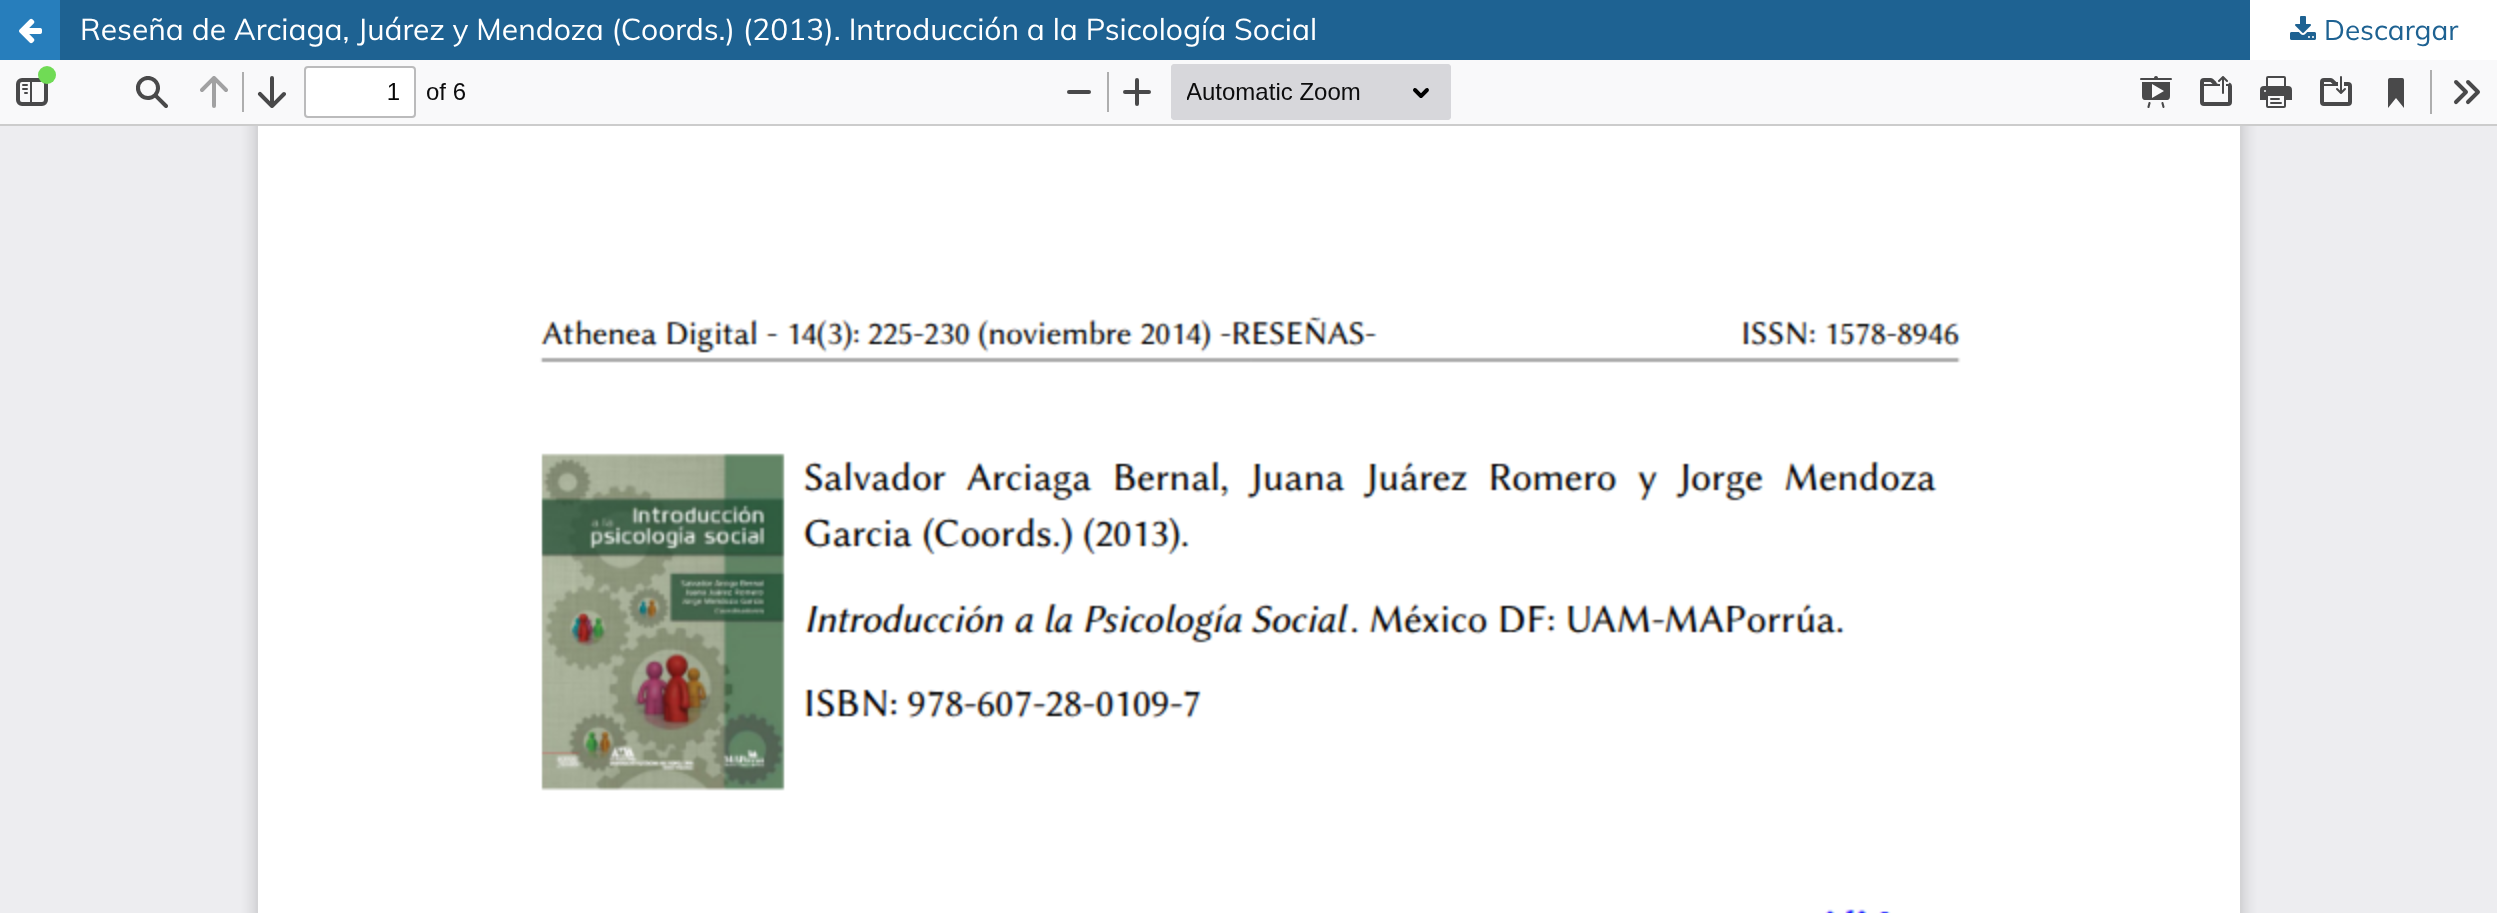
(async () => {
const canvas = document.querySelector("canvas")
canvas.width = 2497
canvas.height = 913
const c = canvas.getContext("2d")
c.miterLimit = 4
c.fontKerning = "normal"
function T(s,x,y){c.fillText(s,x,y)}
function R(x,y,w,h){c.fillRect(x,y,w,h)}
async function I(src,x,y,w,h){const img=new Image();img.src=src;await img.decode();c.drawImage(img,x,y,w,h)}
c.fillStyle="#fff"
R(0,0,2497,913)
c.fillStyle="#1e6292"
R(60,0,2190,60)
c.fillStyle="#277ebc"
R(0,0,60,60)
await I("1.png",19,18,23,26)
c.font="30px Muli"
c.fillStyle="#fff"
T("Reseña de Arciaga, Juárez y Mendoza (Coords.) (2013). Introducción a la Psicología Social",80,40)
await I("2.png",2290,16,26,24)
c.font="28px Muli"
c.fillStyle="#1e6292"
T("Descargar",2324,40)
await I("3.png",0,60,2497,853)
})()
